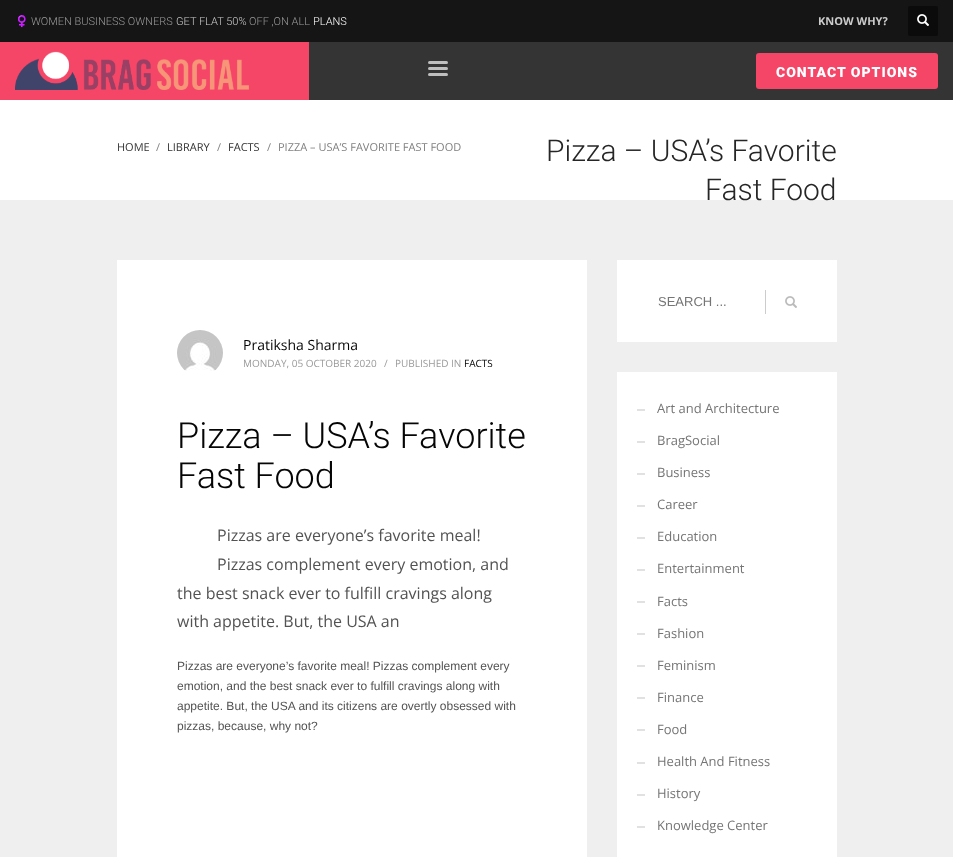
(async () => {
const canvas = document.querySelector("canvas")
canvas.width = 953
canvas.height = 857
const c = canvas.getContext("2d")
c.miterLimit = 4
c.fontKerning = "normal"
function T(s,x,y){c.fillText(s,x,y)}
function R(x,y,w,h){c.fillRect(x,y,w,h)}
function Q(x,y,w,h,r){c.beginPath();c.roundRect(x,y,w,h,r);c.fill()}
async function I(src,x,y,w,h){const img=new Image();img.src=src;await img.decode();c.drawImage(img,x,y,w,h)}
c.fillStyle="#efefef"
R(0,0,953,857)
c.fillStyle="#343434"
R(309,42,644,58)
c.fillStyle="#151515"
R(0,0,953,42)
c.font="11px Noto Color Emoji"
c.fillStyle="#fff"
T("♀️",15,25)
c.font="300 11px Roboto"
c.fillStyle="#9a9a9a"
T("WOMEN BUSINESS OWNERS",31,25)
c.fillStyle="#ccc"
T("GET FLAT 50%",176,25)
c.fillStyle="#9a9a9a"
T("OFF ,ON ALL",249,25)
c.fillStyle="#fff"
T("PLANS",313,25)
c.font="bold 11px Open Sans"
c.fillStyle="#ccc"
T("KNOW WHY?",818,25)
c.fillStyle="#0b0b0b"
Q(908,6,30,30,2)
await I("1.png",917,14,12,12)
c.fillStyle="#f64668"
R(0,42,309,58)
await I("2.png",15,51,234,39)
c.fillStyle="#bebebe"
Q(428,61,20,3,1.5)
Q(428,67,20,3,1.5)
Q(428,73,20,3,1.5)
c.fillStyle="#f64668"
Q(756,53,182,36,3)
c.letterSpacing="1px"
c.font="900 14px Roboto"
c.fillStyle="#fff"
T("CONTACT OPTIONS",776,77)
R(0,100,953,100)
c.letterSpacing="0px"
c.font="11px Open Sans"
c.fillStyle="#333"
T("HOME",117,151)
c.fillStyle="#808080"
T("/",156,151)
c.fillStyle="#333"
T("LIBRARY",167,151)
c.fillStyle="#808080"
T("/",217,151)
c.fillStyle="#333"
T("FACTS",228,151)
c.fillStyle="#808080"
T("/",267,151)
T("PIZZA – USA’S FAVORITE FAST FOOD",278,151)
c.font="300 30px Roboto"
c.fillStyle="#262626"
T("Pizza – USA’s Favorite",546,161)
T("Fast Food",705,200)
c.fillStyle="#fff"
R(117,260,470,597)
await I("3.png",177,330,46,41)
c.font="14px Open Sans"
c.fillStyle="#050505"
T("Pratiksha Sharma",243,350)
c.font="10px Open Sans"
c.fillStyle="#9a9a9a"
T("MONDAY, 05 OCTOBER 2020",243,367)
T("/",384,367)
T("PUBLISHED IN",395,367)
c.fillStyle="#050505"
T("FACTS",464,367)
c.font="300 36px Roboto"
T("Pizza – USA’s Favorite",177,448)
T("Fast Food",177,488)
c.font="16px Open Sans"
c.fillStyle="#535353"
T("Pizzas are everyone’s favorite meal!",217,541)
T("Pizzas complement every emotion, and",217,570)
T("the best snack ever to fulfill cravings along",177,599)
T("with appetite. But, the USA an",177,627)
c.font="12px Liberation Sans"
T("Pizzas are everyone’s favorite meal! Pizzas complement every",177,670)
T("emotion, and the best snack ever to fulfill cravings along with",177,690)
T("appetite. But, the USA and its citizens are overtly obsessed with",177,710)
T("pizzas, because, why not?",177,730)
c.fillStyle="#fff"
R(617,260,220,82)
c.font="13px Liberation Sans"
c.fillStyle="#757575"
T("SEARCH ...",658,306)
c.fillStyle="#ccc"
R(765,290,1,24)
await I("4.png",785,296,12,12)
c.fillStyle="#fff"
R(617,372,220,485)
c.fillStyle="#e1e1e1"
R(637,409,8,2)
c.font="13px Open Sans"
c.fillStyle="#757575"
T("Art and Architecture",657,413)
c.fillStyle="#e1e1e1"
R(637,441,8,2)
c.fillStyle="#757575"
T("BragSocial",657,445)
c.fillStyle="#e1e1e1"
R(637,473,8,2)
c.fillStyle="#757575"
T("Business",657,477)
c.fillStyle="#e1e1e1"
R(637,505,8,2)
c.fillStyle="#757575"
T("Career",657,509)
c.fillStyle="#e1e1e1"
R(637,537,8,2)
c.fillStyle="#757575"
T("Education",657,541)
c.fillStyle="#e1e1e1"
R(637,569,8,2)
c.fillStyle="#757575"
T("Entertainment",657,573)
c.fillStyle="#e1e1e1"
R(637,601,8,2)
c.fillStyle="#757575"
T("Facts",657,606)
c.fillStyle="#e1e1e1"
R(637,633,8,2)
c.fillStyle="#757575"
T("Fashion",657,638)
c.fillStyle="#e1e1e1"
R(637,665,8,2)
c.fillStyle="#757575"
T("Feminism",657,670)
c.fillStyle="#e1e1e1"
R(637,697,8,2)
c.fillStyle="#757575"
T("Finance",657,702)
c.fillStyle="#e1e1e1"
R(637,729,8,2)
c.fillStyle="#757575"
T("Food",657,734)
c.fillStyle="#e1e1e1"
R(637,762,8,2)
c.fillStyle="#757575"
T("Health And Fitness",657,766)
c.fillStyle="#e1e1e1"
R(637,794,8,2)
c.fillStyle="#757575"
T("History",657,798)
c.fillStyle="#e1e1e1"
R(637,826,8,2)
c.fillStyle="#757575"
T("Knowledge Center",657,830)
})()
